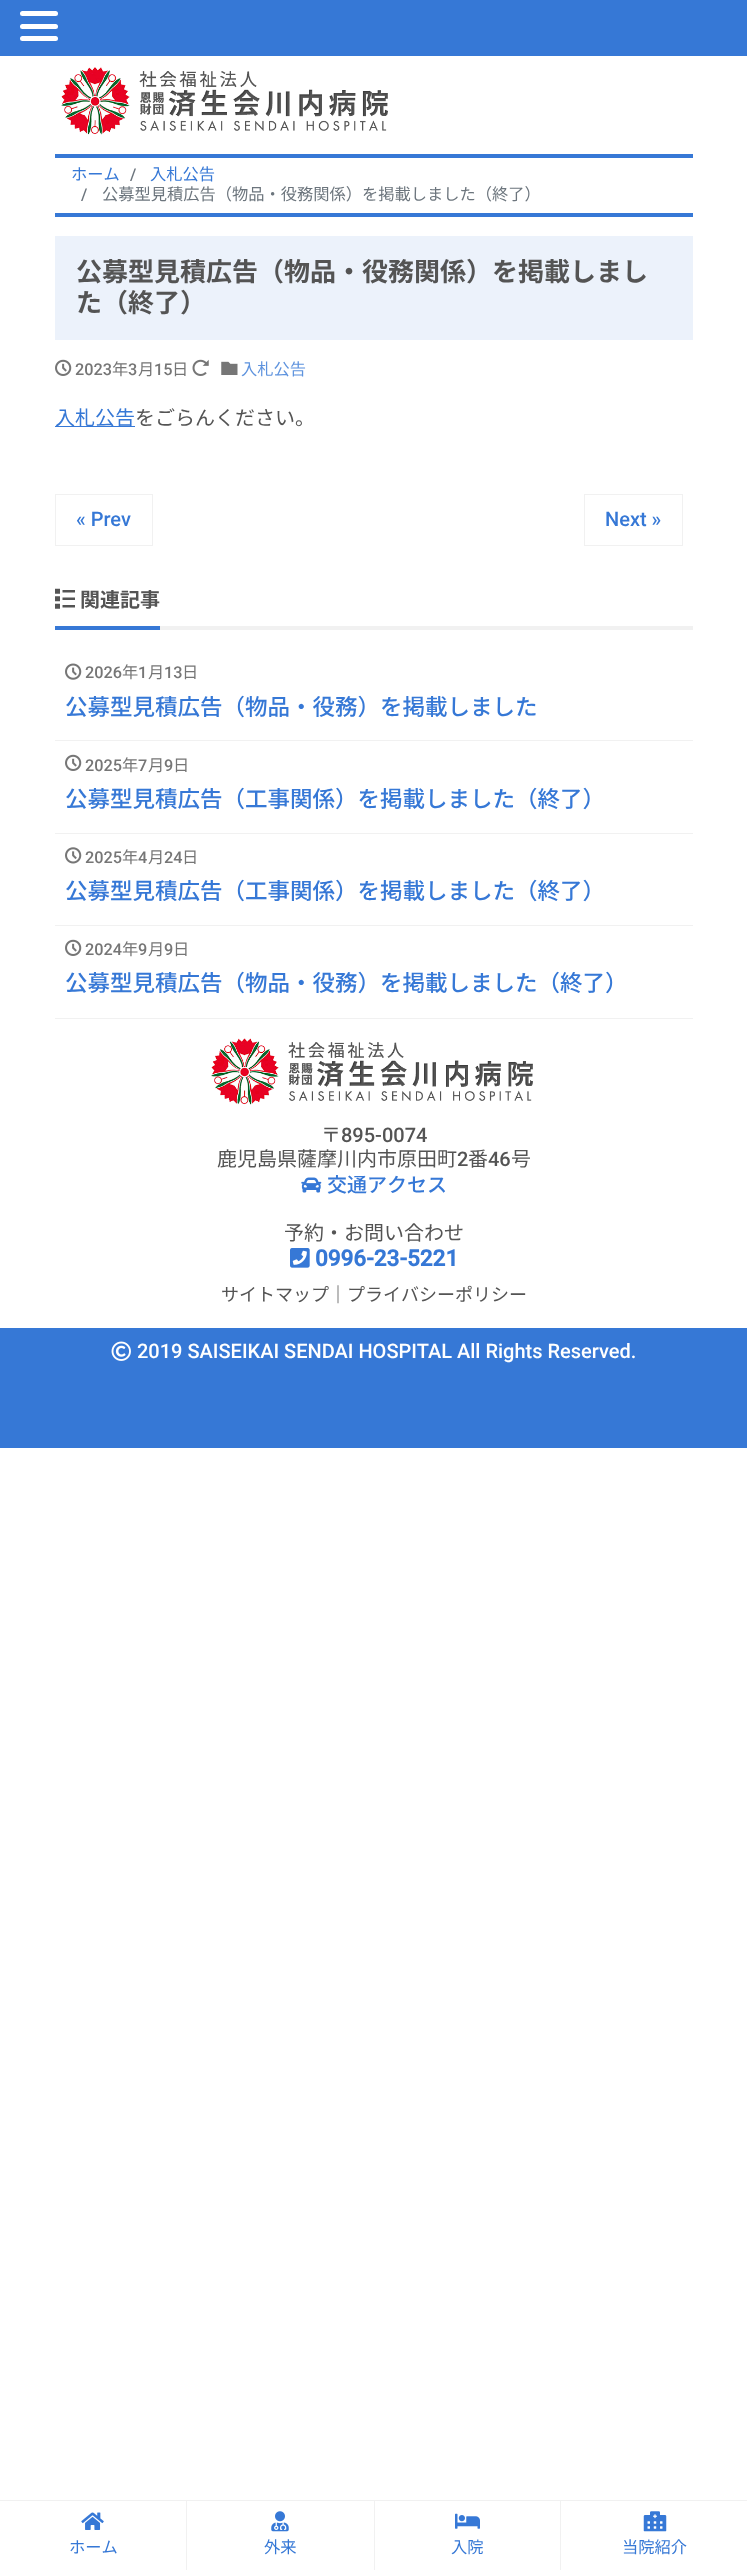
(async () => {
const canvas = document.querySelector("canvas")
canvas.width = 747
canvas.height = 2570
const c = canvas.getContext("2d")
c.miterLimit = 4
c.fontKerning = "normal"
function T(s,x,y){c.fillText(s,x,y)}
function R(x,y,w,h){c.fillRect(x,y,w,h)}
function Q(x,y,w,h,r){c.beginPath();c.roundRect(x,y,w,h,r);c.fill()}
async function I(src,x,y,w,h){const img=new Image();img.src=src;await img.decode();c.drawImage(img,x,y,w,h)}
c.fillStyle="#fff"
R(0,0,747,2570)
c.fillStyle="#3678d6"
R(0,0,747,56)
c.fillStyle="#fff"
Q(20,11,38,5,2.5)
Q(20,24,38,5,2.5)
Q(20,36,38,5,2.5)
await I("1.png",61,67,327,68)
c.fillStyle="#3678d6"
R(55,154,638,4)
R(55,213,638,4)
c.font="16.25px Noto Sans JP"
T("ホーム",71,180)
c.font="500 16.25px Roboto"
c.fillStyle="#6c757d"
T("/",130,180)
c.font="16.25px Noto Sans JP"
c.fillStyle="#3678d6"
T("入札公告",150,180)
c.font="500 16.25px Roboto"
c.fillStyle="#6c757d"
T("/",81,200)
c.font="16.25px Noto Sans JP"
T("公募型見積広告（物品・役務関係）を掲載しました（終了）",102,200)
c.fillStyle="#ecf2fb"
R(55,236,638,104)
c.font="bold 26px Noto Sans JP"
c.fillStyle="#545454"
T("公募型見積広告（物品・役務関係）を掲載しまし",76,281)
T("た（終了）",76,312)
await I("2.png",55,359,17,17)
c.font="500 16.25px Roboto"
c.fillStyle="#767676"
T("2023",75,375)
c.font="16.25px Noto Sans JP"
T("年",112,375)
c.font="500 16.25px Roboto"
T("3",128,375)
c.font="16.25px Noto Sans JP"
T("月",138,375)
c.font="500 16.25px Roboto"
T("15",154,375)
c.font="16.25px Noto Sans JP"
T("日",172,375)
await I("3.png",192,359,17,17)
await I("4.png",221,361,17,14)
c.fillStyle="#5e93de"
T("入札公告",241,375)
c.fillStyle="#3678d6"
R(55,426,80,1)
c.font="20px Noto Sans JP"
T("入札公告",55,425)
c.fillStyle="#545454"
T("をごらんください。",135,425)
c.strokeStyle="#f1f1f1"
c.strokeRect(55.5,494.5,97,51)
c.font="500 20px Roboto"
c.fillStyle="#3678d6"
T("« Prev",76,526)
c.strokeRect(584.5,494.5,98,51)
T("Next »",605,526)
c.fillStyle="#f1f1f1"
R(160,626,533,4)
c.fillStyle="#3678d6"
R(55,626,105,4)
await I("5.png",55,588,20,21)
c.font="bold 20px Noto Sans JP"
c.fillStyle="#545454"
T("関連記事",80,607)
c.fillStyle="#f1f1f1"
R(55,740,638,1)
await I("6.png",65,663,17,17)
c.font="500 16.25px Roboto"
c.fillStyle="#767676"
T("2026",85,678)
c.font="16.25px Noto Sans JP"
T("年",122,678)
c.font="500 16.25px Roboto"
T("1",138,678)
c.font="16.25px Noto Sans JP"
T("月",148,678)
c.font="500 16.25px Roboto"
T("13",164,678)
c.font="16.25px Noto Sans JP"
T("日",182,678)
c.font="500 22.5px Noto Sans JP"
c.fillStyle="#3678d6"
T("公募型見積広告（物品・役務）を掲載しました",65,715)
c.fillStyle="#f1f1f1"
R(55,833,638,1)
await I("2.png",65,754,17,17)
c.font="500 16.25px Roboto"
c.fillStyle="#767676"
T("2025",85,771)
c.font="16.25px Noto Sans JP"
T("年",122,771)
c.font="500 16.25px Roboto"
T("7",138,771)
c.font="16.25px Noto Sans JP"
T("月",148,771)
c.font="500 16.25px Roboto"
T("9",164,771)
c.font="16.25px Noto Sans JP"
T("日",173,771)
c.font="500 22.5px Noto Sans JP"
c.fillStyle="#3678d6"
T("公募型見積広告（工事関係）を掲載しました（終了）",65,807)
c.fillStyle="#f1f1f1"
R(55,925,638,1)
await I("7.png",65,847,17,17)
c.font="500 16.25px Roboto"
c.fillStyle="#767676"
T("2025",85,863)
c.font="16.25px Noto Sans JP"
T("年",122,863)
c.font="500 16.25px Roboto"
T("4",138,863)
c.font="16.25px Noto Sans JP"
T("月",148,863)
c.font="500 16.25px Roboto"
T("24",164,863)
c.font="16.25px Noto Sans JP"
T("日",182,863)
c.font="500 22.5px Noto Sans JP"
c.fillStyle="#3678d6"
T("公募型見積広告（工事関係）を掲載しました（終了）",65,899)
c.fillStyle="#f1f1f1"
R(55,1018,638,1)
await I("2.png",65,939,17,17)
c.font="500 16.25px Roboto"
c.fillStyle="#767676"
T("2024",85,955)
c.font="16.25px Noto Sans JP"
T("年",122,955)
c.font="500 16.25px Roboto"
T("9",138,955)
c.font="16.25px Noto Sans JP"
T("月",148,955)
c.font="500 16.25px Roboto"
T("9",164,955)
c.font="16.25px Noto Sans JP"
T("日",173,955)
c.font="500 22.5px Noto Sans JP"
c.fillStyle="#3678d6"
T("公募型見積広告（物品・役務）を掲載しました（終了）",65,991)
await I("8.png",211,1038,322,67)
c.font="20px Noto Sans JP"
c.fillStyle="#545454"
T("〒",321,1142)
c.font="500 20px Roboto"
T("895-0074",341,1142)
c.font="20px Noto Sans JP"
T("鹿児島県薩摩川内市原田町",217,1166)
c.font="500 20px Roboto"
T("2",457,1166)
c.font="20px Noto Sans JP"
T("番",468,1166)
c.font="500 20px Roboto"
T("46",488,1166)
c.font="20px Noto Sans JP"
T("号",511,1166)
await I("9.png",301,1177,21,16)
c.font="500 20px Noto Sans JP"
c.fillStyle="#3678d6"
T("交通アクセス",327,1192)
c.font="20px Noto Sans JP"
c.fillStyle="#545454"
T("予約・お問い合わせ",284,1240)
await I("10.png",290,1248,20,20)
c.font="bold 22.5px Roboto"
c.fillStyle="#3678d6"
T("0996-23-5221",315,1266)
c.font="18px Noto Sans JP"
c.fillStyle="#545454"
T("サイトマップ｜プライバシーポリシー",221,1301)
c.fillStyle="#3678d6"
R(0,1328,747,120)
await I("11.png",111,1341,20,20)
c.font="500 20px Roboto"
c.fillStyle="#fff"
T("2019 SAISEIKAI SENDAI HOSPITAL All Rights Reserved.",137,1358)
c.fillStyle="#f1f1f1"
R(0,2500,747,1)
R(186,2501,1,69)
await I("12.png",81,2512,23,18)
c.font="16.25px Noto Sans JP"
c.fillStyle="#3678d6"
T("ホーム",69,2553)
c.fillStyle="#f1f1f1"
R(374,2501,1,69)
await I("13.png",271,2511,18,21)
c.fillStyle="#3678d6"
T("外来",264,2553)
c.fillStyle="#f1f1f1"
R(560,2501,1,69)
await I("14.png",455,2513,25,16)
c.fillStyle="#3678d6"
T("入院",451,2553)
await I("15.png",643,2511,24,21)
T("当院紹介",622,2553)
})()
